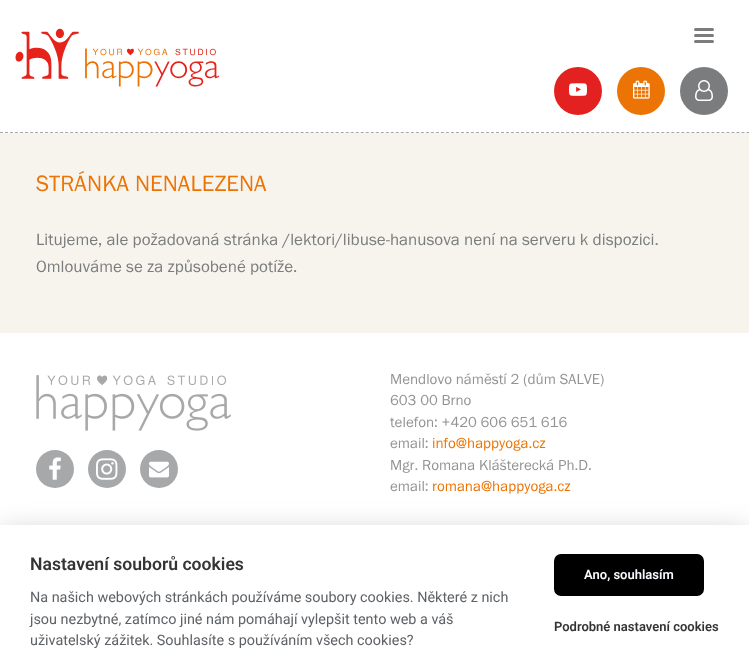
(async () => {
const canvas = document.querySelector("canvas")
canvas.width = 749
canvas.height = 660
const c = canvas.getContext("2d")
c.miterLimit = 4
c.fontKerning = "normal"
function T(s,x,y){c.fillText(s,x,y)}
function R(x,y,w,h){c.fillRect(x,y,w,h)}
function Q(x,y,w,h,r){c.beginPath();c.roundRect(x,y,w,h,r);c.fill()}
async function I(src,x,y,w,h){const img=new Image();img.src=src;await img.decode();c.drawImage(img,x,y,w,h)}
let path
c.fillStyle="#fff"
R(0,0,749,660)
path = new Path2D("M0 132.5h749")
c.strokeStyle="#a7a8aa"
c.setLineDash([3,2.01])
c.stroke(path)
await I("1.png",15,28,205,59)
c.fillStyle="#7b7c7e"
Q(694,28,20,3,1.5)
Q(694,34,20,3,1.5)
Q(694,40,20,3,1.5)
c.fillStyle="#e32120"
c.beginPath()
c.arc(578,91,24,0,7)
c.fill()
await I("2.png",569,83,18,13)
c.fillStyle="#ec7404"
c.beginPath()
c.arc(641,91,24,0,7)
c.fill()
await I("3.png",633,80,17,19)
c.fillStyle="#7b7c7e"
c.beginPath()
c.arc(704,91,24,0,7)
c.fill()
await I("4.png",695,80,18,21)
c.fillStyle="#f7f4ee"
R(0,133,749,200)
c.font="23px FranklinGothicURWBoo"
c.fillStyle="#ec7404"
T("STRÁNKA NENALEZENA",36,191)
c.font="17px FranklinGothicURWBoo"
c.fillStyle="#7b7c7e"
T("Litujeme, ale požadovaná stránka /lektori/libuse-hanusova není na serveru k dispozici.",36,245)
T("Omlouváme se za způsobené potíže.",36,272)
await I("5.png",36,375,195,56)
c.font="15px FranklinGothicURWBoo"
c.fillStyle="#929395"
T("Mendlovo náměstí 2 (dům SALVE)",390,384)
T("603 00 Brno",390,405)
T("telefon: +420 606 651 616",390,427)
T("email:",390,448)
c.fillStyle="#ec7404"
T("info@happyoga.cz",432,448)
c.fillStyle="#929395"
T("Mgr. Romana Klášterecká Ph.D.",390,470)
T("email:",390,491)
c.fillStyle="#ec7404"
T("romana@happyoga.cz",432,491)
c.fillStyle="#a7a8aa"
c.beginPath()
c.arc(55,469,19,0,7)
c.fill()
await I("6.png",49,457,12,23)
c.beginPath()
c.arc(107,469,19,0,7)
c.fill()
await I("7.png",96,458,22,22)
c.beginPath()
c.arc(159,469,19,0,7)
c.fill()
await I("8.png",149,461,20,17)
c.fillStyle="#02020347"
c.filter="blur(15px)"
c.beginPath()
c.rect(0,535,749,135)
c.fill()
c.filter="none"
c.fillStyle="#fff"
R(0,525,749,135)
c.font="600 17.6px Roboto"
c.fillStyle="#343434"
T("Nastavení souborů cookies",30,570)
c.font="14.4px Roboto"
c.fillStyle="#5e6266"
T("Na našich webových stránkách používáme soubory cookies. Některé z nich",30,602)
T("jsou nezbytné, zatímco jiné nám pomáhají vylepšit tento web a váš",30,624)
T("uživatelský zážitek. Souhlasíte s používáním všech cookies?",30,645)
c.fillStyle="#000"
Q(554,554,150,42,7)
c.font="600 13px Roboto"
c.fillStyle="#f9faff"
T("Ano, souhlasím",584,579)
c.fillStyle="#343434"
T("Podrobné nastavení cookies",554,631)
})()
